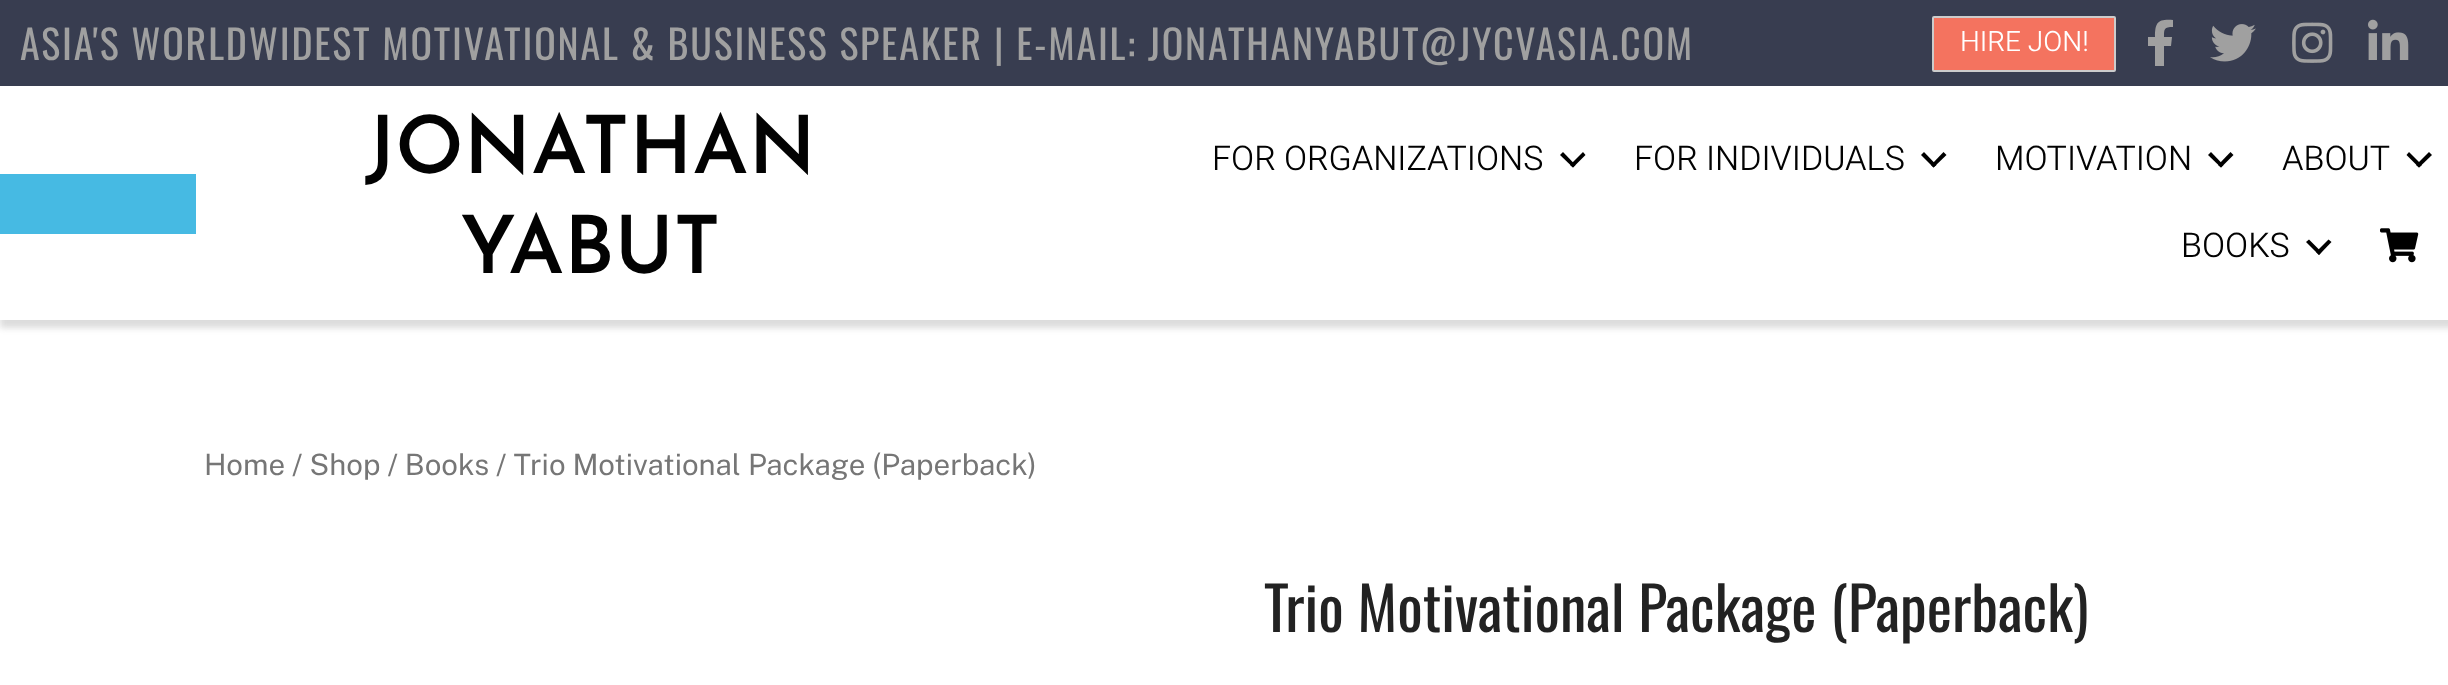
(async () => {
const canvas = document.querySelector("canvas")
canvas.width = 2448
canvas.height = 685
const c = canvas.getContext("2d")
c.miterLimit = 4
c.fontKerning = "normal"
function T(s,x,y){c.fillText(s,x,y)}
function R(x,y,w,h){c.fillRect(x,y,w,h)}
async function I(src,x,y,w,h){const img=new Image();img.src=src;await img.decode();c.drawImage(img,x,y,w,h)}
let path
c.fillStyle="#fff"
R(0,0,2448,685)
c.fillStyle="#adadad6e"
c.filter="blur(3px)"
c.beginPath()
c.rect(0,0,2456,328)
c.fill()
c.filter="none"
c.fillStyle="#fff"
R(0,86,2448,234)
c.fillStyle="#383d50"
R(0,0,2448,86)
c.letterSpacing="1.8px"
c.font="40px Oswald"
c.fillStyle="#a0a0a0"
T("ASIA'S WORLDWIDEST MOTIVATIONAL & BUSINESS SPEAKER | E-MAIL: JONATHANYABUT@JYCVASIA.COM",20,60)
c.fillStyle="#f4735f"
c.beginPath()
c.roundRect(1933,17,182,54,1)
c.fill()
c.strokeStyle="#ccc"
c.lineWidth=2
c.stroke()
c.letterSpacing="0px"
c.font="300 28px Heebo"
c.fillStyle="#fff"
T("HIRE JON!",1960,51)
c.fillStyle="#a0a0a0"
path = new Path2D("M2171 46h-7v20h-9v-20h-7v-9h7c0-15 3-18 18-17v7c-9 0-9 2-9 10h8z")
c.fill(path)
await I("1.png",2210,24,46,38)
await I("2.png",2292,22,41,41)
await I("3.png",2368,19,41,41)
c.fillStyle="#46bae3"
R(0,174,196,60)
c.font="100 80px Josefin Sans"
c.fillStyle="#020202"
T("JONATHAN",365,173)
T("YABUT",460,273)
c.font="300 34px Heebo"
T("FOR ORGANIZATIONS",1212,170)
c.fillStyle="#000"
path = new Path2D("M1583 152l2.5 3l-12.5 12.5l-3-2.5z")
c.fill(path)
path = new Path2D("M1563 152l12.5 13l-2.5 2.5l-13-12.5z")
c.fill(path)
c.fillStyle="#020202"
T("FOR INDIVIDUALS",1634,170)
c.fillStyle="#000"
path = new Path2D("M1943.5 152l3 3l-13 12.5l-2.5-2.5z")
c.fill(path)
path = new Path2D("M1924 152l12.5 13l-3 2.5l-12.5-12.5z")
c.fill(path)
c.fillStyle="#020202"
T("MOTIVATION",1995,170)
c.fillStyle="#000"
path = new Path2D("M2230.5 152l3 3l-12.5 12.5l-3-2.5z")
c.fill(path)
path = new Path2D("M2211 152l12.5 13l-2.5 2.5l-13-12.5z")
c.fill(path)
c.fillStyle="#020202"
T("ABOUT",2282,170)
c.fillStyle="#000"
path = new Path2D("M2429 152l3 3l-13 12.5l-3-2.5z")
c.fill(path)
path = new Path2D("M2409 152l13 13l-3 2.5l-12.5-12.5z")
c.fill(path)
c.fillStyle="#020202"
T("BOOKS",2181,257)
c.fillStyle="#000"
path = new Path2D("M2328.5 239.5l3 2.5l-12.5 13l-3-3z")
c.fill(path)
path = new Path2D("M2309 239.5l12.5 12.5l-2.5 3l-13-13z")
c.fill(path)
await I("4.png",2380,228,39,35)
c.font="100 29.45px Public Sans"
c.fillStyle="#767676"
T("Home / Shop / Books / Trio Motivational Package (Paperback)",204,475)
c.font="60px Oswald"
c.fillStyle="#222"
T("Trio Motivational Package (Paperback)",1264,632)
})()
